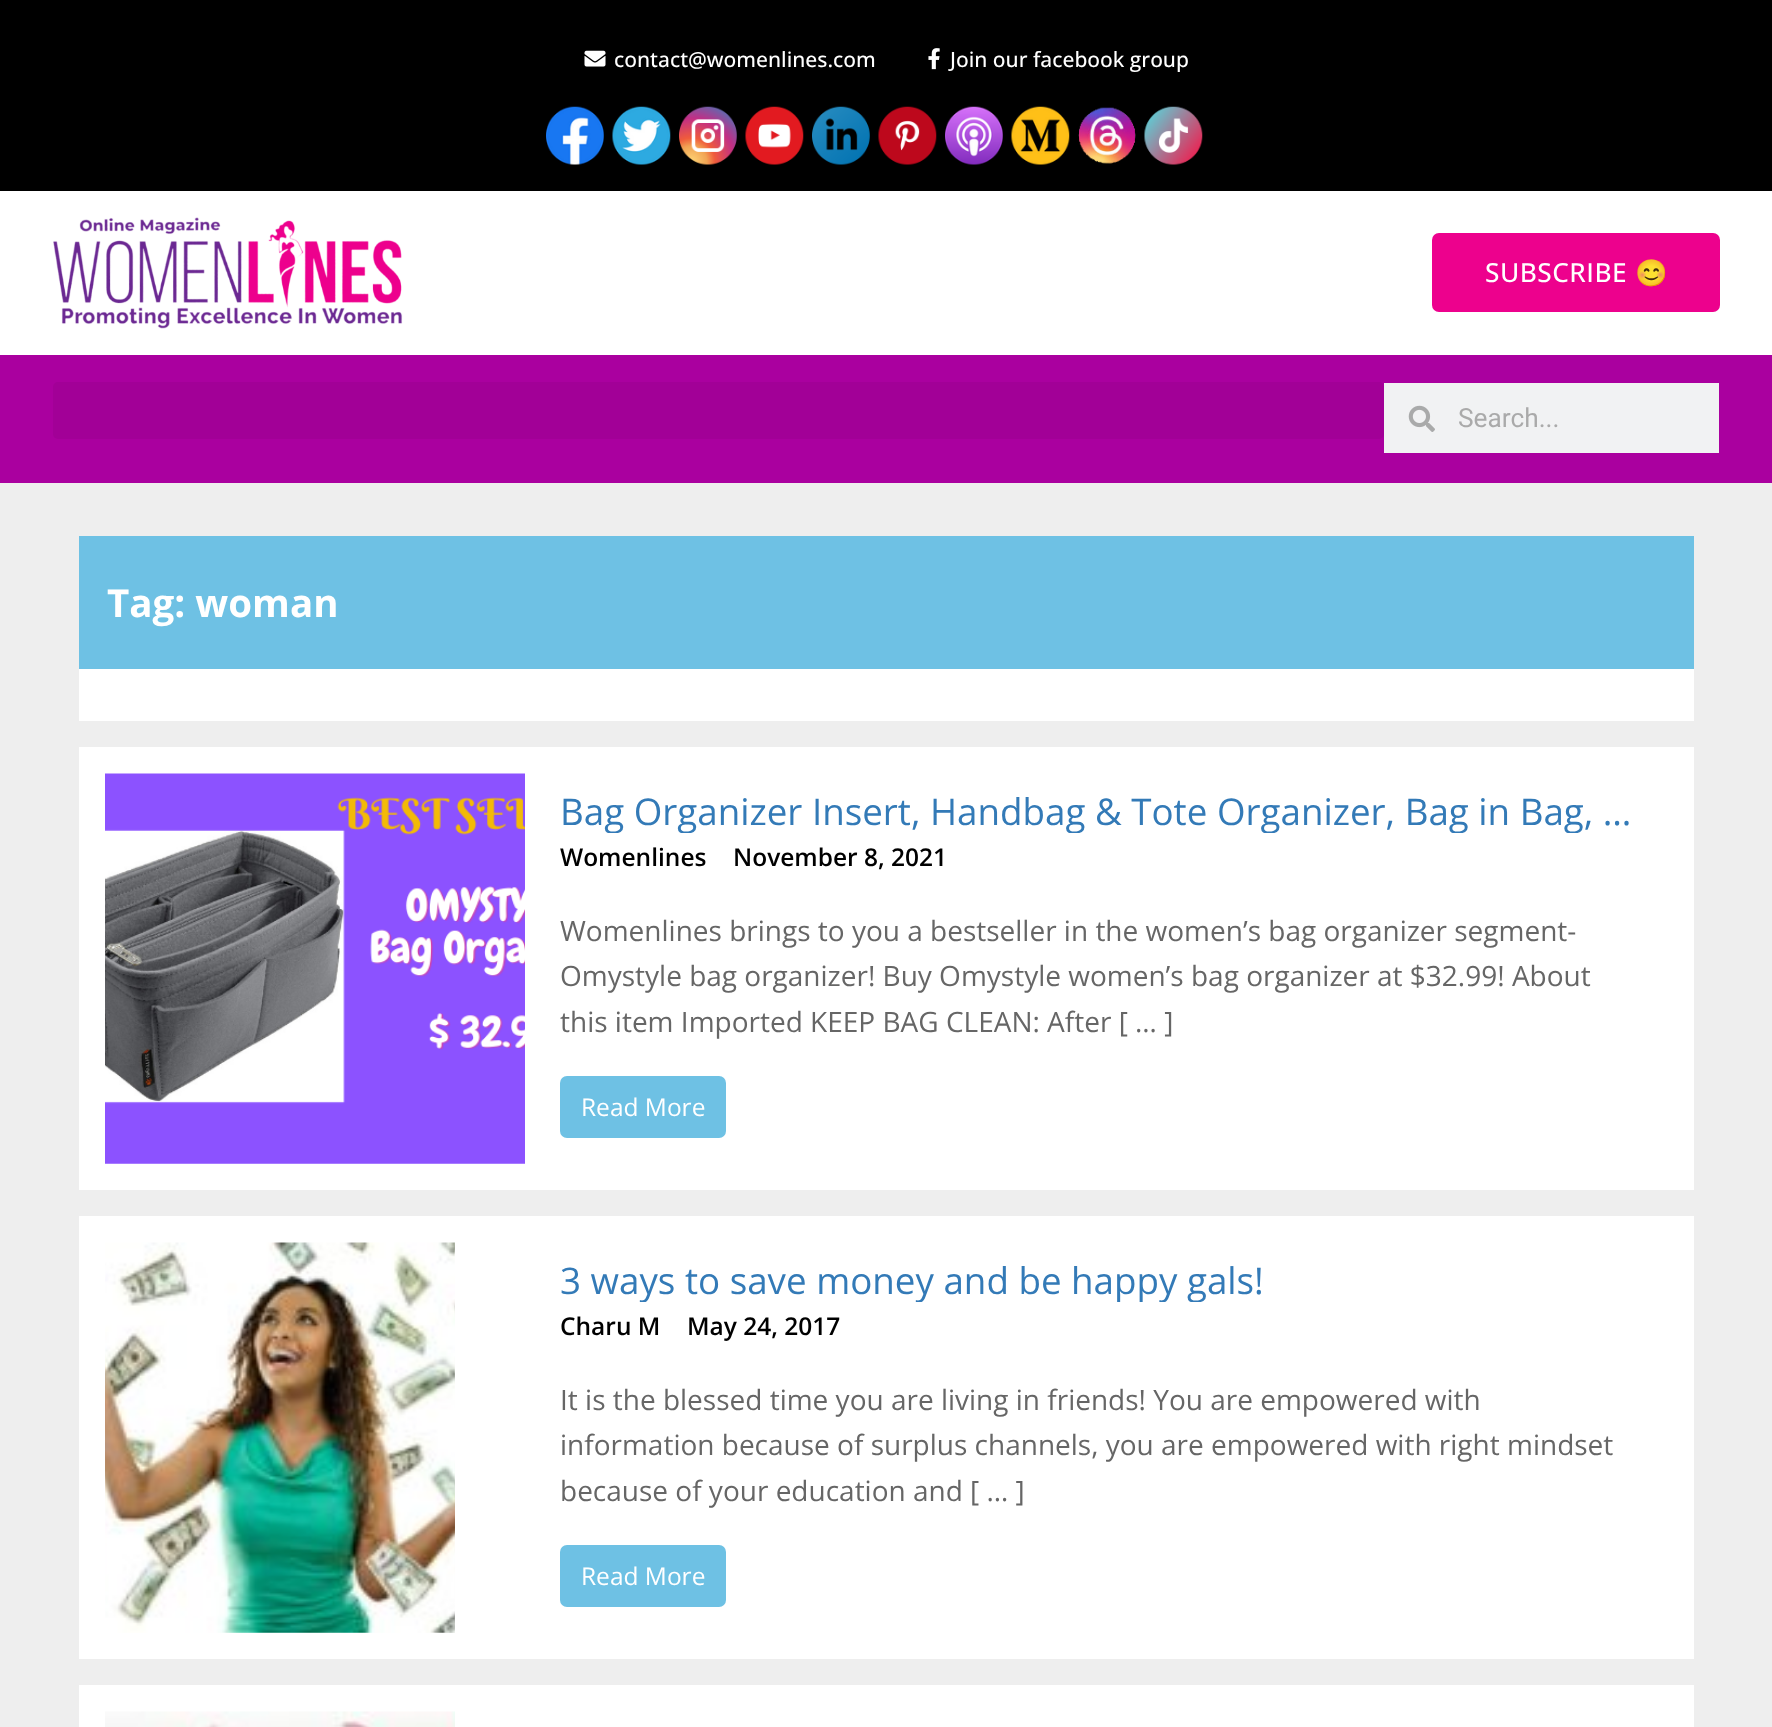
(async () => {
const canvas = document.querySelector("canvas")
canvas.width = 1772
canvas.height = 1727
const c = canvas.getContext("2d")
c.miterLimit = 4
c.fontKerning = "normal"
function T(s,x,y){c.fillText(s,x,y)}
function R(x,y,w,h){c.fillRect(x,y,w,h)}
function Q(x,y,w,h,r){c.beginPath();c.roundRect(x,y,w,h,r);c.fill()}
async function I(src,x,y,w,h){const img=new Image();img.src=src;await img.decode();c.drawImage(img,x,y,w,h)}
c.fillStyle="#eee"
R(0,0,1772,1727)
c.fillStyle="#000"
R(0,0,1772,191)
await I("1.png",584,50,22,17)
c.font="500 21px Open Sans"
c.fillStyle="#fff"
T("contact@womenlines.com",614,67)
await I("2.png",928,48,12,22)
T("Join our facebook group",950,67)
await I("3.png",546,106,58,59)
await I("4.png",612,106,59,59)
await I("5.png",679,106,58,59)
await I("6.png",745,106,59,59)
await I("7.png",812,106,58,59)
await I("8.png",878,106,59,59)
await I("9.png",945,106,58,59)
await I("10.png",1011,106,59,59)
await I("11.png",1078,107,58,57)
await I("12.png",1144,106,59,59)
R(0,191,1772,164)
await I("13.png",53,217,350,112)
c.fillStyle="#ed018d"
Q(1432,233,288,79,7)
c.letterSpacing="0.5px"
c.font="500 26.25px Open Sans"
c.fillStyle="#fff"
T("SUBSCRIBE",1485,282)
c.font="26.25px Noto Color Emoji"
T("😊",1635,282)
c.fillStyle="#aa009f"
R(0,355,1772,128)
c.fillStyle="#a20097"
Q(53,382,1331,57,5)
c.fillStyle="#f1f2f3"
R(1384,383,335,70)
await I("14.png",1408,405,27,27)
c.letterSpacing="0px"
c.font="26.25px Roboto"
c.fillStyle="#aaa"
T("Search...",1458,427)
c.fillStyle="#fff"
R(79,669,1615,52)
c.fillStyle="#6ec1e4"
R(79,536,1615,133)
c.font="bold 38.5px Open Sans"
c.fillStyle="#fff"
T("Tag: woman",107,617)
R(79,747,1615,443)
await I("15.png",105,773,420,391)
c.save()
c.beginPath()
c.rect(560,791,1073,42)
c.clip()
c.font="36.75px Open Sans"
c.fillStyle="#337ab7"
T("Bag Organizer Insert, Handbag & Tote Organizer, Bag in Bag, …",560,825)
c.restore()
c.font="600 24.5px Open Sans"
c.fillStyle="#000"
T("Womenlines",560,866)
T("November 8, 2021",733,866)
c.font="28px Open Sans"
c.fillStyle="#666"
T("Womenlines brings to you a bestseller in the women’s bag organizer segment-",560,941)
T("Omystyle bag organizer! Buy Omystyle women’s bag organizer at $32.99! About",560,986)
T("this item Imported KEEP BAG CLEAN: After [ … ]",560,1032)
c.fillStyle="#6ec1e4"
Q(560,1076,166,62,7)
c.font="24.5px Open Sans"
c.fillStyle="#fff"
T("Read More",581,1116)
R(79,1216,1615,443)
await I("16.png",105,1242,350,391)
c.save()
c.beginPath()
c.rect(560,1260,1073,42)
c.clip()
c.font="36.75px Open Sans"
c.fillStyle="#337ab7"
T("3 ways to save money and be happy gals!",560,1294)
c.restore()
c.font="600 24.5px Open Sans"
c.fillStyle="#000"
T("Charu M",560,1335)
T("May 24, 2017",687,1335)
c.font="28px Open Sans"
c.fillStyle="#666"
T("It is the blessed time you are living in friends! You are empowered with",560,1410)
T("information because of surplus channels, you are empowered with right mindset",560,1455)
T("because of your education and [ … ]",560,1501)
c.fillStyle="#6ec1e4"
Q(560,1545,166,62,7)
c.font="24.5px Open Sans"
c.fillStyle="#fff"
T("Read More",581,1585)
R(79,1685,1615,42)
await I("17.png",105,1711,350,16)
})()
